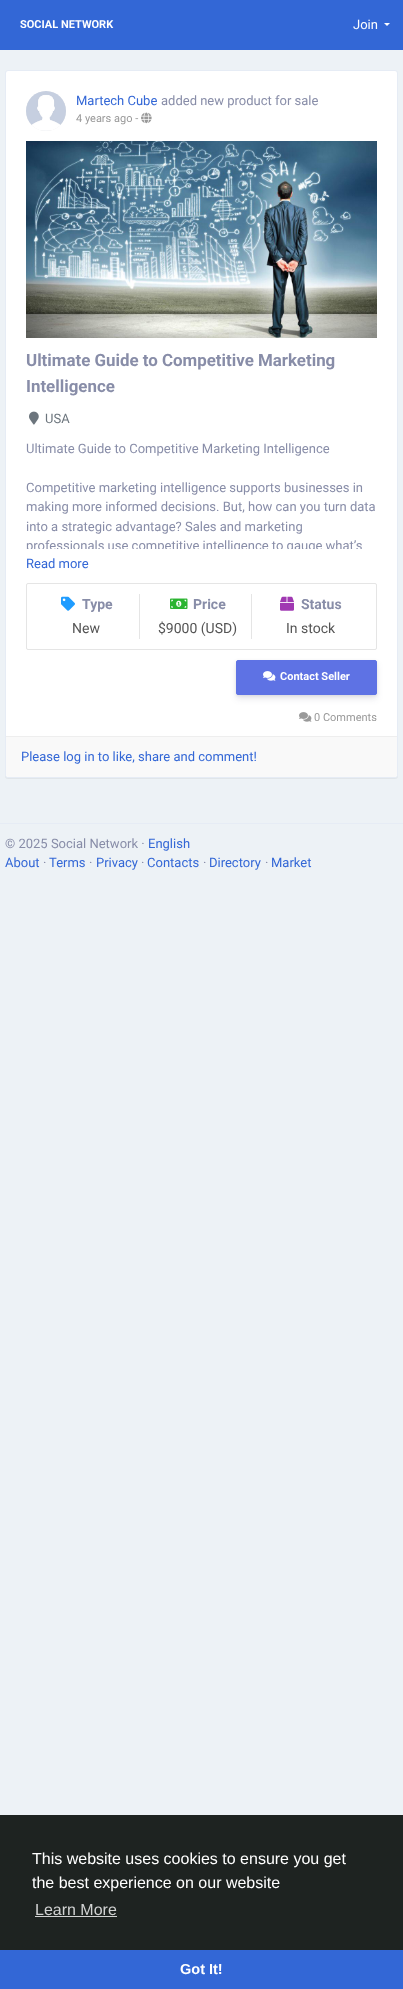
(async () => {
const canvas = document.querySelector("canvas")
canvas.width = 403
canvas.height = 1989
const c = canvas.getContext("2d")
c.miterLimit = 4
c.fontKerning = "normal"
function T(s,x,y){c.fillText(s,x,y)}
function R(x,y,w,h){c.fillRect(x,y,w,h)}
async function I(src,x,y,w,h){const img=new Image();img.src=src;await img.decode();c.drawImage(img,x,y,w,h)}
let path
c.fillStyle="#edf2f6"
R(0,0,403,1989)
c.fillStyle="#3367d6"
R(0,0,403,50)
c.font="bold 11px Roboto"
c.fillStyle="#fff"
T("SOCIAL NETWORK",20,28)
c.font="13px Roboto"
T("Join",353,29)
path = new Path2D("M384 23h6l-3 3z")
c.fill(path)
c.fillStyle="#0000000d"
c.filter="blur(0.5px)"
c.beginPath()
c.roundRect(5,71,393,708,3)
c.fill()
c.filter="none"
c.fillStyle="#fff"
c.beginPath()
c.roundRect(5.5,70.5,392,707,2.5)
c.fill()
c.strokeStyle="#e6ecf5"
c.stroke()
c.fillStyle="#eee"
c.beginPath()
c.arc(46,111,20,0,7)
c.fill()
await I("1.png",26,91,40,40)
c.fillStyle="#3367d6"
T("Martech Cube",76,105)
c.fillStyle="#888da8"
T("added new product for sale",161,105)
c.font="11px Roboto"
c.fillStyle="#999"
T("4 years ago -",76,122)
await I("2.png",141,112,11,12)
await I("3.png",26,141,351,197)
c.font="bold 16.9px Roboto"
c.fillStyle="#888da8"
T("Ultimate Guide to Competitive Marketing",26,366)
T("Intelligence",26,392)
await I("4.png",29,411,10,14)
c.font="13px Roboto"
c.fillStyle="#6c757d"
T("USA",45,423)
c.fillStyle="#888da8"
T("Ultimate Guide to Competitive Marketing Intelligence",26,453)
T("Competitive marketing intelligence supports businesses in",26,492)
T("making more informed decisions. But, how can you turn data",26,511)
T("into a strategic advantage? Sales and marketing",26,531)
c.save()
c.beginPath()
c.rect(26,439,351,110)
c.clip()
T("professionals use competitive intelligence to gauge what’s",26,550)
c.restore()
c.fillStyle="#3367d6"
T("Read more",26,568)
c.beginPath()
c.roundRect(26.5,583.5,350,66,1.5)
c.strokeStyle="#e5e5e5"
c.stroke()
c.fillStyle="#e5e5e5"
R(139,594,1,45)
await I("5.png",61,596,14,15)
c.font="bold 14px Roboto"
c.fillStyle="#888da8"
T("Type",82,609)
c.font="14px Roboto"
c.fillStyle="#555"
T("New",72,633)
c.fillStyle="#e5e5e5"
R(251,594,1,45)
await I("6.png",170,598,18,11)
c.font="bold 14px Roboto"
c.fillStyle="#888da8"
T("Price",193,609)
c.font="14px Roboto"
c.fillStyle="#555"
T("$9000 (USD)",158,633)
await I("7.png",280,596,14,15)
c.font="bold 14px Roboto"
c.fillStyle="#888da8"
T("Status",301,609)
c.font="14px Roboto"
c.fillStyle="#555"
T("In stock",286,633)
c.fillStyle="#00000014"
c.filter="blur(1.5px)"
c.beginPath()
c.roundRect(236,661,141,35,2)
c.fill()
c.filter="none"
c.fillStyle="#32325d1c"
c.filter="blur(3px)"
c.beginPath()
c.roundRect(236,664,141,35,2)
c.fill()
c.filter="none"
c.fillStyle="#5e72e4"
c.beginPath()
c.roundRect(236.5,660.5,140,34,1.5)
c.fill()
c.strokeStyle="#5e72e4"
c.stroke()
await I("8.png",263,671,13,10)
c.font="bold 11px Roboto"
c.fillStyle="#fff"
T("Contact Seller",280,680)
await I("9.png",299,712,13,10)
c.font="11px Roboto"
c.fillStyle="#999"
T("0 Comments",314,721)
c.fillStyle="#f9f9f9"
c.beginPath()
c.roundRect(6,736,391,41,[0,0,3,3])
c.fill()
c.fillStyle="#eee"
R(6,736,391,1)
c.font="13px Roboto"
c.fillStyle="#3367d6"
T("Please log in to like, share and comment!",21,761)
c.fillStyle="#e6ecf5"
R(0,823,403,1)
c.fillStyle="#888da8"
T("© 2025 Social Network ·",5,848)
c.fillStyle="#3367d6"
T("English",148,848)
T("About",5,867)
c.fillStyle="#888da8"
T("·",43,867)
c.fillStyle="#3367d6"
T("Terms",49,867)
c.fillStyle="#888da8"
T("·",89,867)
c.fillStyle="#3367d6"
T("Privacy",96,867)
c.fillStyle="#888da8"
T("·",141,867)
c.fillStyle="#3367d6"
T("Contacts",147,867)
c.fillStyle="#888da8"
T("·",203,867)
c.fillStyle="#3367d6"
T("Directory",209,867)
c.fillStyle="#888da8"
T("·",265,867)
c.fillStyle="#3367d6"
T("Market",271,867)
c.fillStyle="#1e2321"
R(0,1815,403,135)
c.font="16px Liberation Sans"
c.fillStyle="#fff"
T("This website uses cookies to ensure you get",32,1864)
T("the best experience on our website",32,1888)
c.fillStyle="#d2d3d3"
T("Learn More",35,1915)
R(35,1916,82,1)
c.fillStyle="#3367d6"
R(0,1950,403,39)
c.font="bold 14.5px Liberation Sans"
c.fillStyle="#fff"
T("Got It!",180,1974)
})()
